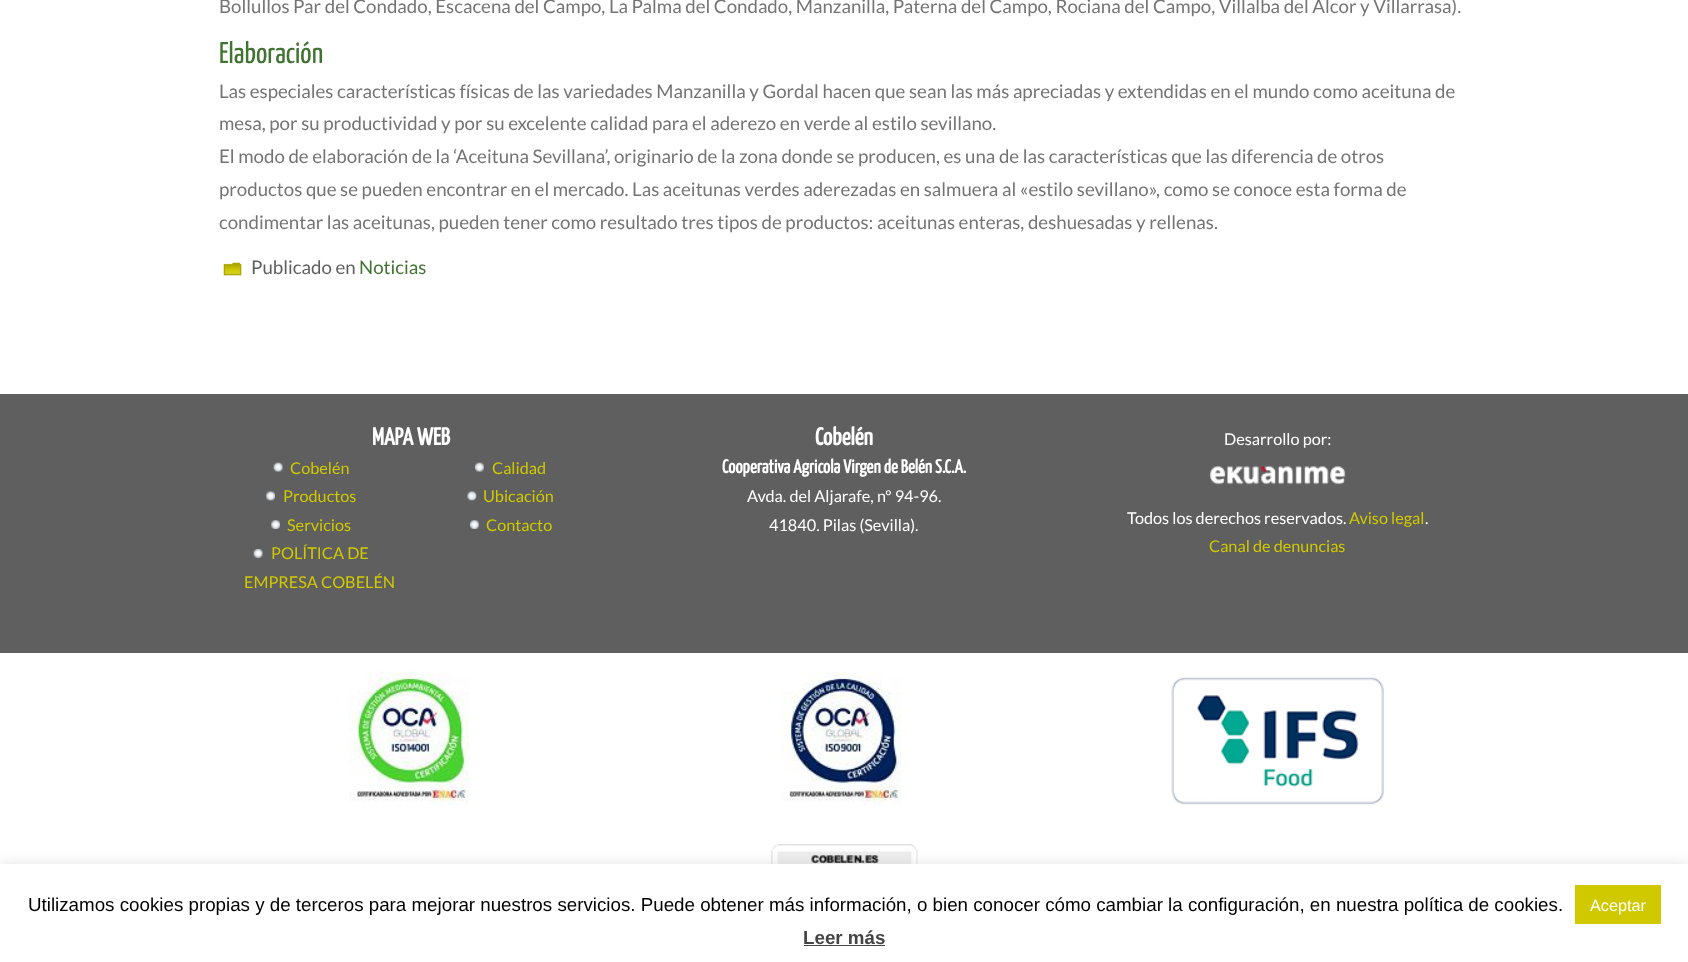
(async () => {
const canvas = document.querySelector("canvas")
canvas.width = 1688
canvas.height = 962
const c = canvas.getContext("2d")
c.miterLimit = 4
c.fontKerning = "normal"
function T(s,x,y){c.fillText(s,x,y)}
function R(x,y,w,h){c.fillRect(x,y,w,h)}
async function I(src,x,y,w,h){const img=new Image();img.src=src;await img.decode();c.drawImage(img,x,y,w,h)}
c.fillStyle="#fff"
R(0,0,1688,962)
c.font="18.7px Lato"
c.fillStyle="#747474"
T("Bollullos Par del Condado, Escacena del Campo, La Palma del Condado, Manzanilla, Paterna del Campo, Rociana del Campo, Villalba del Alcor y Villarrasa).",219,13)
c.font="200 30px Yanone Kaffeesatz"
c.fillStyle="#417333"
T("Elaboración",219,63)
c.font="18.7px Lato"
c.fillStyle="#747474"
T("Las especiales características físicas de las variedades Manzanilla y Gordal hacen que sean las más apreciadas y extendidas en el mundo como aceituna de",219,98)
T("mesa, por su productividad y por su excelente calidad para el aderezo en verde al estilo sevillano.",219,130)
T("El modo de elaboración de la ‘Aceituna Sevillana’, originario de la zona donde se producen, es una de las características que las diferencia de otros",219,163)
T("productos que se pueden encontrar en el mercado. Las aceitunas verdes aderezadas en salmuera al «estilo sevillano», como se conoce esta forma de",219,196)
T("condimentar las aceitunas, pueden tener como resultado tres tipos de productos: aceitunas enteras, deshuesadas y rellenas.",219,229)
await I("1.png",223,262,19,14)
c.fillStyle="#5f5f5f"
T("Publicado en",251,274)
c.fillStyle="#417333"
T("Noticias",359,274)
c.fillStyle="#5f5f5f"
R(0,394,1688,259)
c.font="bold 24.5px Yanone Kaffeesatz"
c.fillStyle="#fff"
T("MAPA WEB",372,445)
await I("2.png",273,462,10,10)
c.font="16.25px Lato"
c.fillStyle="#d0c900"
T("Cobelén",290,474)
await I("3.png",266,491,9,10)
T("Productos",283,502)
await I("4.png",271,520,9,9)
T("Servicios",287,531)
await I("5.png",253,549,10,9)
T("POLÍTICA DE",271,559)
T("EMPRESA COBELÉN",244,588)
await I("6.png",475,462,9,10)
T("Calidad",492,474)
await I("7.png",467,491,10,10)
T("Ubicación",483,502)
await I("8.png",470,520,9,9)
T("Contacto",486,531)
c.font="bold 24.5px Yanone Kaffeesatz"
c.fillStyle="#fff"
T("Cobelén",815,445)
c.font="bold 19px Yanone Kaffeesatz"
T("Cooperativa Agricola Virgen de Belén S.C.A.",722,473)
c.font="16.25px Lato"
T("Avda. del Aljarafe, nº 94-96.",747,502)
T("41840. Pilas (Sevilla).",769,531)
T("Desarrollo por:",1224,445)
await I("9.png",1209,466,137,19)
T("Todos los derechos reservados.",1127,524)
c.fillStyle="#d0c900"
T("Aviso legal",1349,524)
c.fillStyle="#fff"
T(".",1425,524)
c.fillStyle="#d0c900"
T("Canal de denuncias",1209,552)
await I("10.png",349,671,121,134)
await I("11.png",781,671,121,134)
await I("12.png",1171,677,213,128)
await I("13.png",771,844,147,20)
c.fillStyle="#acabab4d"
c.filter="blur(6px)"
c.beginPath()
c.rect(0,863,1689,98)
c.fill()
c.filter="none"
c.fillStyle="#fff"
R(0,864,1688,98)
c.font="18.75px Liberation Sans"
c.fillStyle="#000"
T("Utilizamos cookies propias y de terceros para mejorar nuestros servicios. Puede obtener más información, o bien conocer cómo cambiar la configuración, en nuestra política de cookies.",28,911)
c.fillStyle="#d0c900"
R(1575,885,86,39)
c.font="16.25px Liberation Sans"
c.fillStyle="#fff"
T("Aceptar",1590,911)
c.font="bold 18.75px Liberation Sans"
c.fillStyle="#444"
T("Leer más",803,944)
R(804,945,81,1)
})()
